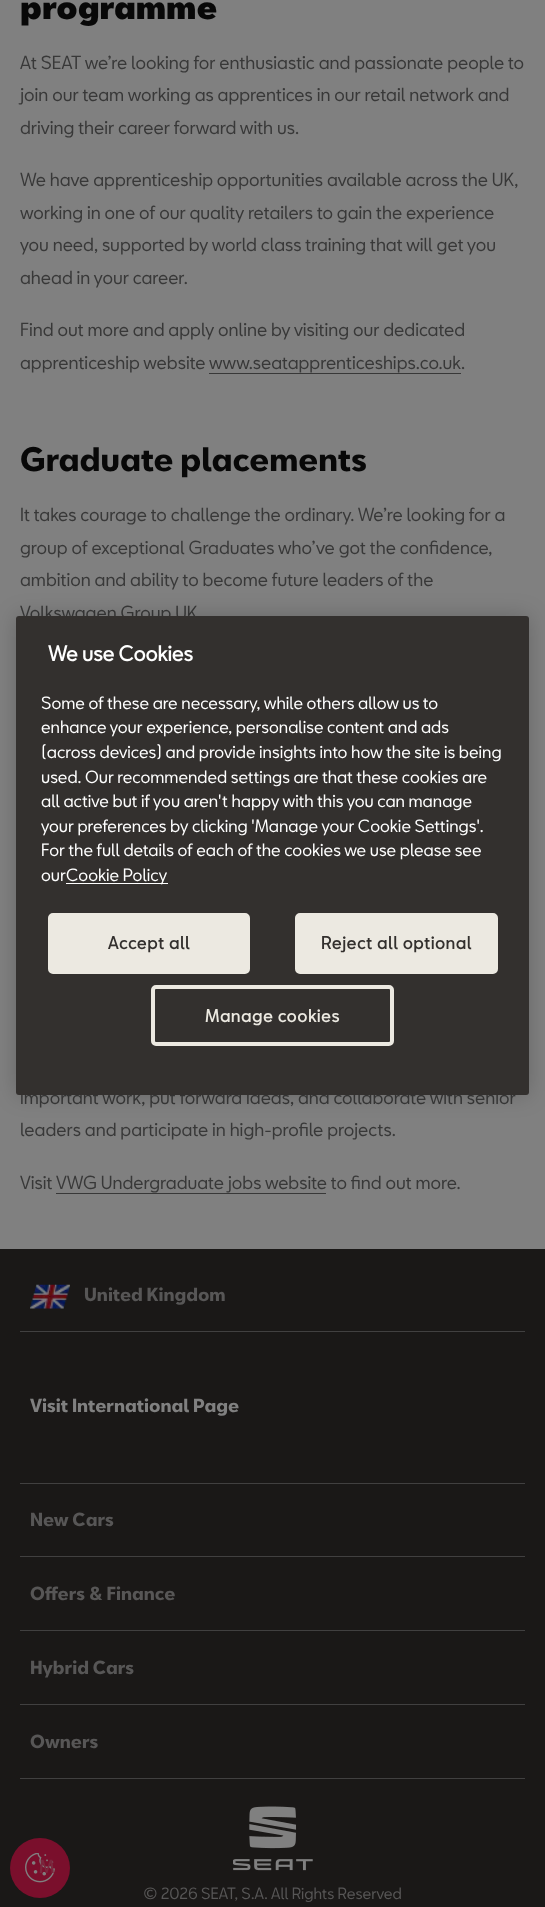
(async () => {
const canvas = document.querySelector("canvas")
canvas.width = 545
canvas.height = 1907
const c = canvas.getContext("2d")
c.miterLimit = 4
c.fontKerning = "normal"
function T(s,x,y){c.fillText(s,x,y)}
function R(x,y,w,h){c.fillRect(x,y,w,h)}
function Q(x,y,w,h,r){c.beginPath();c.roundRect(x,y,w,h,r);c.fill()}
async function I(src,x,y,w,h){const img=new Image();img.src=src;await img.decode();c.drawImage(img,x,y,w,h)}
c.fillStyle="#808080"
R(0,0,545,1907)
c.font="900 31.25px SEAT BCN"
c.fillStyle="#080808"
T("programme",20,19)
c.font="17.5px SEAT BCN"
c.fillStyle="#383838"
T("At SEAT we’re looking for enthusiastic and passionate people to",20,69)
T("join our team working as apprentices in our retail network and",20,101)
T("driving their career forward with us.",20,134)
T("We have apprenticeship opportunities available across the UK,",20,186)
T("working in one of our quality retailers to gain the experience",20,219)
T("you need, supported by world class training that will get you",20,251)
T("ahead in your career.",20,284)
T("Find out more and apply online by visiting our dedicated",20,336)
T("apprenticeship website",20,369)
T("www.seatapprenticeships.co.uk",209,369)
R(209,373,252,1)
T(".",461,369)
c.font="bold 31.25px SEAT BCN"
c.fillStyle="#080808"
T("Graduate placements",20,471)
c.font="17.5px SEAT BCN"
c.fillStyle="#383838"
T("It takes courage to challenge the ordinary. We’re looking for a",20,521)
T("group of exceptional Graduates who’ve got the confidence,",20,554)
T("ambition and ability to become future leaders of the",20,586)
T("Volkswagen Group UK",20,619)
T("important work, put forward ideas, and collaborate with senior",20,1104)
T("leaders and participate in high-profile projects.",20,1136)
T("Visit",20,1189)
T("VWG Undergraduate jobs website to find out more.",56,1189)
R(56,1193,270,1)
c.fillStyle="#00000033"
c.filter="blur(11px)"
c.beginPath()
c.roundRect(16,616,513,479,3)
c.fill()
c.filter="none"
c.fillStyle="#33302e"
Q(16,616,513,479,3)
c.font="bold 20px 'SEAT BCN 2'"
c.fillStyle="#fff"
T("We use Cookies",48,661)
c.font="16.4px SEAT BCN"
T("Some of these are necessary, while others allow us to",41,709)
T("enhance your experience, personalise content and ads",41,733)
T("(across devices) and provide insights into how the site is being",41,758)
T("used. Our recommended settings are that these cookies are",41,783)
T("all active but if you aren't happy with this you can manage",41,807)
T("your preferences by clicking 'Manage your Cookie Settings'.",41,832)
T("For the full details of each of the cookies we use please see",41,856)
T("our",41,881)
R(66,883,102,1)
T("Cookie Policy",66,881)
c.fillStyle="#ece9e1"
c.beginPath()
c.roundRect(50,915,198,57,3)
c.fill()
c.strokeStyle="#ece9e1"
c.lineWidth=4
c.stroke()
c.letterSpacing="0.8px"
c.font="bold 16.4px 'SEAT BCN 2'"
c.fillStyle="#33302e"
T("Accept all",108,949)
c.fillStyle="#ece9e1"
c.beginPath()
c.roundRect(297,915,199,57,3)
c.fill()
c.stroke()
c.fillStyle="#33302e"
T("Reject all optional",321,949)
c.beginPath()
c.roundRect(153,987,239,57,3)
c.stroke()
c.fillStyle="#ece9e1"
T("Manage cookies",205,1022)
c.fillStyle="#1a1817"
R(0,1249,545,658)
c.fillStyle="#414040"
R(20,1331,505,1)
await I("1.png",30,1284,40,25)
c.letterSpacing="0px"
c.font="bold 17.5px SEAT BCN"
c.fillStyle="#575656"
T("United Kingdom",84,1301)
c.fillStyle="#414040"
R(20,1483,505,1)
c.fillStyle="#808080"
T("Visit International Page",30,1412)
c.fillStyle="#414040"
R(20,1556,505,1)
c.fillStyle="#575656"
T("New Cars",30,1526)
c.fillStyle="#414040"
R(20,1630,505,1)
c.fillStyle="#575656"
T("Offers & Finance",30,1600)
c.fillStyle="#414040"
R(20,1704,505,1)
c.fillStyle="#575656"
T("Hybrid Cars",30,1674)
c.fillStyle="#414040"
R(20,1778,505,1)
c.fillStyle="#575656"
T("Owners",30,1748)
await I("2.png",233,1806,80,65)
c.font="15px SEAT BCN"
T("© 2026 SEAT, S.A. All Rights Reserved",143,1899)
c.fillStyle="#7a0f2c"
c.beginPath()
c.arc(40,1868,30,0,7)
c.fill()
await I("3.png",25,1853,30,30)
c.font="500 17.5px SEAT BCN"
c.fillStyle="#7b263d"
T("M",39,1873)
})()
